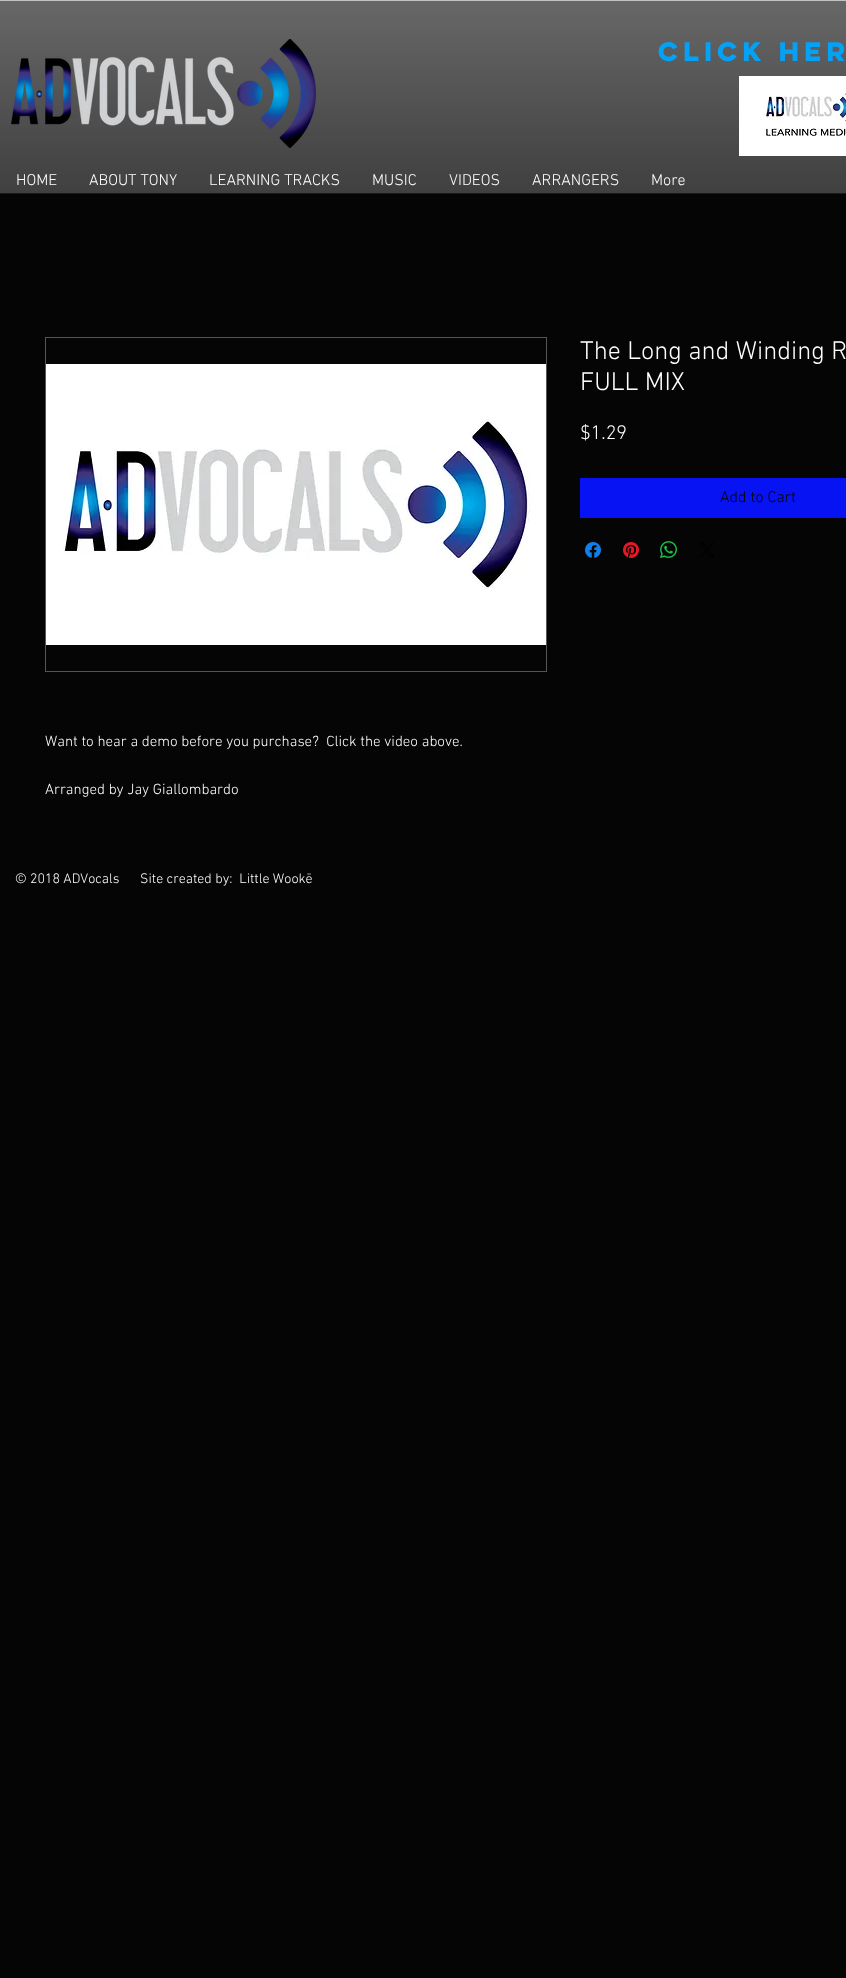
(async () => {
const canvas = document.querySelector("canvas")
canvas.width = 846
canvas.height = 1978
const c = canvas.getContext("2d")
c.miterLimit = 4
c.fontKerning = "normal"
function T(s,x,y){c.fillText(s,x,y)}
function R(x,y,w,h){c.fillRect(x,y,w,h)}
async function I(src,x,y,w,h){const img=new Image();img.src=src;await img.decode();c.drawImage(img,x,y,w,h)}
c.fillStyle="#050505"
R(0,0,846,1978)
c.fillStyle="#333"
R(0,1,846,192)
await I("1.png",0,1,846,192)
c.fillStyle="#1a1a1a"
R(0,193,846,1)
c.fillStyle="#c3c3c3"
R(0,0,846,1)
await I("2.png",11,39,305,109)
c.font="bold 24px 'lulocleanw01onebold'"
c.fillStyle="#05a1f5"
T("CLick her",658,61)
await I("3.png",739,76,107,80)
c.font="300 16px 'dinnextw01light'"
c.fillStyle="#fff"
T("HOME",16,185)
T("ABOUT TONY",89,185)
T("LEARNING TRACKS",209,185)
T("MUSIC",372,185)
T("VIDEOS",449,185)
T("ARRANGERS",532,185)
T("More",651,185)
c.font="300 26px 'dinnextw01light'"
T("The Long and Winding R",580,359)
T("FULL MIX",580,390)
c.font="300 20px 'dinnextw01light'"
T("$1.29",580,439)
c.fillStyle="#0713f2"
R(580,478,266,40)
c.font="300 16px 'dinnextw01light'"
c.fillStyle="#050505"
T("Add to Cart",720,502)
await I("4.png",585,542,16,16)
await I("5.png",623,542,16,16)
await I("6.png",660,541,17,17)
await I("7.png",700,542,14,16)
c.strokeStyle="#555"
c.strokeRect(45.5,337.5,501,334)
await I("8.png",46,364,500,281)
c.font="300 15px 'dinnextw01light'"
c.fillStyle="#fff"
T("Want to hear a demo before you purchase?  Click the video above.",45,746)
T("Arranged by Jay Giallombardo",45,794)
c.font="300 14px 'dinnextw01light'"
T("© 2018 ADVocals      Site created by:  Little Wookē",15,883)
})()
